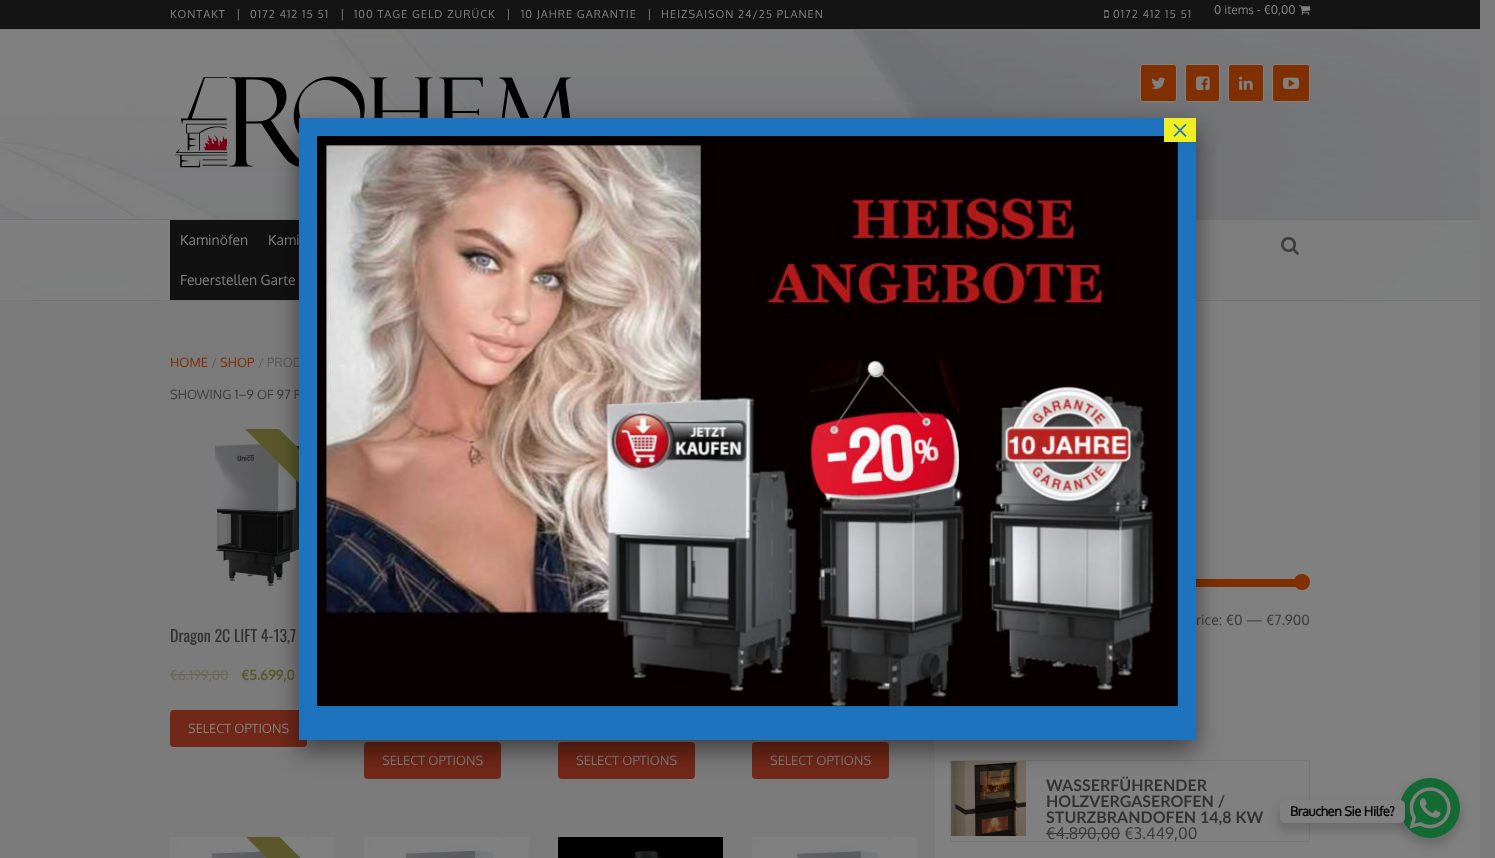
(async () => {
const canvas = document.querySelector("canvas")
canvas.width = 1495
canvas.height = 858
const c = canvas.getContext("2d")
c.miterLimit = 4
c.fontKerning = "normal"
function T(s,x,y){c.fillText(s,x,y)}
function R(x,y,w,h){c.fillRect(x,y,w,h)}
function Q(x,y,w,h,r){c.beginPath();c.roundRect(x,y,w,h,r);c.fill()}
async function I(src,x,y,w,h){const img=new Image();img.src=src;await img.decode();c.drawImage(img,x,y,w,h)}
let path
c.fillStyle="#7b7b7b"
R(0,0,1495,858)
c.fillStyle="#141414"
R(0,0,1480,29)
c.fillStyle="#787878"
R(0,29,1480,1)
c.letterSpacing="1px"
c.font="11px Oxygen"
c.fillStyle="#808080"
T("KONTAKT",170,18)
c.letterSpacing="0px"
c.font="12px Oxygen"
T("|",236,18)
c.letterSpacing="1px"
c.font="11px Oxygen"
T("0172 412 15 51",250,18)
c.letterSpacing="0px"
c.font="12px Oxygen"
T("|",340,18)
c.letterSpacing="1px"
c.font="11px Oxygen"
T("100 TAGE GELD ZURÜCK",354,18)
c.letterSpacing="0px"
c.font="12px Oxygen"
T("|",506,18)
c.letterSpacing="1px"
c.font="11px Oxygen"
T("10 JAHRE GARANTIE",521,18)
c.letterSpacing="0px"
c.font="12px Oxygen"
T("|",647,18)
c.letterSpacing="1px"
c.font="11px Oxygen"
T("HEIZSAISON 24/25 PLANEN",661,18)
await I("1.png",1104,10,5,8)
T("0172 412 15 51",1113,18)
c.letterSpacing="0px"
c.font="12px Oxygen"
T("0 items - €0,00",1214,14)
await I("2.png",1299,5,12,10)
await I("3.png",0,30,1480,270)
await I("4.png",175,76,397,92)
c.fillStyle="#802f00"
c.beginPath()
c.roundRect(1140.5,64.5,36,37,2.5)
c.fill()
c.strokeStyle="#808080"
c.stroke()
await I("5.png",1151,77,15,12)
c.beginPath()
c.roundRect(1185.5,64.5,34,37,2.5)
c.fill()
c.stroke()
await I("6.png",1196,76,14,15)
c.beginPath()
c.roundRect(1228.5,64.5,35,37,2.5)
c.fill()
c.stroke()
await I("7.png",1239,76,14,14)
c.beginPath()
c.roundRect(1272.5,64.5,37,37,2.5)
c.fill()
c.stroke()
await I("8.png",1283,77,16,12)
c.fillStyle="#808080e6"
R(0,220,1480,80)
c.fillStyle="#737373"
R(0,219,1480,1)
R(0,300,1480,1)
c.fillStyle="#111"
R(170,220,129,80)
c.font="14px Oxygen"
c.fillStyle="#808080"
T("Kaminöfen",180,245)
T("Kami",268,245)
T("Feuerstellen Garte",180,285)
await I("9.png",1281,236,18,19)
c.font="12.75px Oxygen"
c.fillStyle="#802f00"
T("HOME",170,367)
c.fillStyle="#5a5a5a"
T("/",211,367)
c.fillStyle="#802f00"
T("SHOP",220,367)
c.fillStyle="#5a5a5a"
T("/ PROD",258,367)
c.fillStyle="#3d3d3d"
T("SHOWING 1–9 OF 97 R",170,399)
await I("10.png",213,443,86,143)
c.save()
c.beginPath()
c.rect(170,429,165,268)
c.clip()
c.fillStyle="#5a582a"
path = new Path2D("M236 386l142 142l-17 17l-142-142z")
c.fill(path)
c.restore()
c.font="16px Oswald"
c.fillStyle="#333"
T("Dragon 2C LIFT 4-13,7",170,642)
c.font="13.5px Oxygen"
c.fillStyle="#6a6953"
T("€6.199,00",170,680)
R(170,674,59,1)
c.font="bold 13.5px Oxygen"
c.fillStyle="#5a582a"
T("€5.699,0",241,680)
c.fillStyle="#722818"
Q(170,710,137,37,4)
c.font="12.75px Oxygen"
c.fillStyle="#808080"
T("SELECT OPTIONS",188,733)
c.fillStyle="#722818"
Q(364,742,137,37,4)
c.fillStyle="#808080"
T("SELECT OPTIONS",382,765)
c.fillStyle="#722818"
Q(558,742,137,37,4)
c.fillStyle="#808080"
T("SELECT OPTIONS",576,765)
c.fillStyle="#722818"
Q(752,742,137,37,4)
c.fillStyle="#808080"
T("SELECT OPTIONS",770,765)
await I("11.png",170,837,165,21)
c.save()
c.beginPath()
c.rect(170,837,165,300)
c.clip()
c.fillStyle="#5a582a"
path = new Path2D("M236 793l142 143l-17 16l-142-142z")
c.fill(path)
c.restore()
await I("11.png",364,837,165,21)
await I("12.png",558,837,165,21)
await I("13.png",752,837,165,21)
c.save()
c.beginPath()
c.rect(0,301,1480,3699)
c.clip()
path = new Path2D("M935 346h390v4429h-390v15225h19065v-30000h-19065z")
c.fill(path)
c.restore()
R(935,346,390,512)
c.fillStyle="#802f00"
R(1196,579,106,8)
c.beginPath()
c.arc(1302,582,8,0,7)
c.fill()
c.font="14px Oxygen"
c.fillStyle="#3d3d3d"
T("rice: €0 — €7.900",1196,625)
c.strokeStyle="#777"
c.strokeRect(950.5,760.5,359,81)
await I("14.png",951,761,75,75)
c.font="bold 16px Lato"
c.fillStyle="#333"
T("WASSERFÜHRENDER",1046,791)
T("HOLZVERGASEROFEN /",1046,807)
T("STURZBRANDOFEN 14,8 KW",1046,823)
c.font="16px Oxygen"
c.fillStyle="#3d3d3d"
T("€4.890,00 €3.449,00",1046,839)
R(1046,833,74,1)
c.fillStyle="#02020280"
c.filter="blur(12.5px)"
c.beginPath()
c.rect(299,128,897,622)
c.fill()
c.filter="none"
c.fillStyle="#1e73be"
R(299,118,897,622)
await I("15.png",317,136,861,571)
c.fillStyle="#0202021a"
c.filter="blur(0.5px)"
c.beginPath()
c.rect(1163,119,32,24)
c.fill()
c.filter="none"
c.fillStyle="#ee2"
R(1164,118,32,24)
c.font="32px Liberation Serif"
c.fillStyle="#1e73be"
T("×",1171,141)
c.fillStyle="#00000026"
c.filter="blur(4px)"
c.beginPath()
c.roundRect(1398,782,64,64,32)
c.fill()
c.filter="none"
c.fillStyle="#136a33"
c.beginPath()
c.arc(1430,808,30,0,7)
c.fill()
await I("16.png",1409,787,42,42)
c.fillStyle="#00000026"
c.filter="blur(4px)"
c.beginPath()
c.roundRect(1278,804,129,27,7)
c.fill()
c.filter="none"
c.fillStyle="#808080"
Q(1280,800,125,23,5)
c.letterSpacing="-0.4px"
c.font="bold 13px Oxygen"
c.fillStyle="#000"
T("Brauchen Sie Hilfe?",1290,816)
})()
